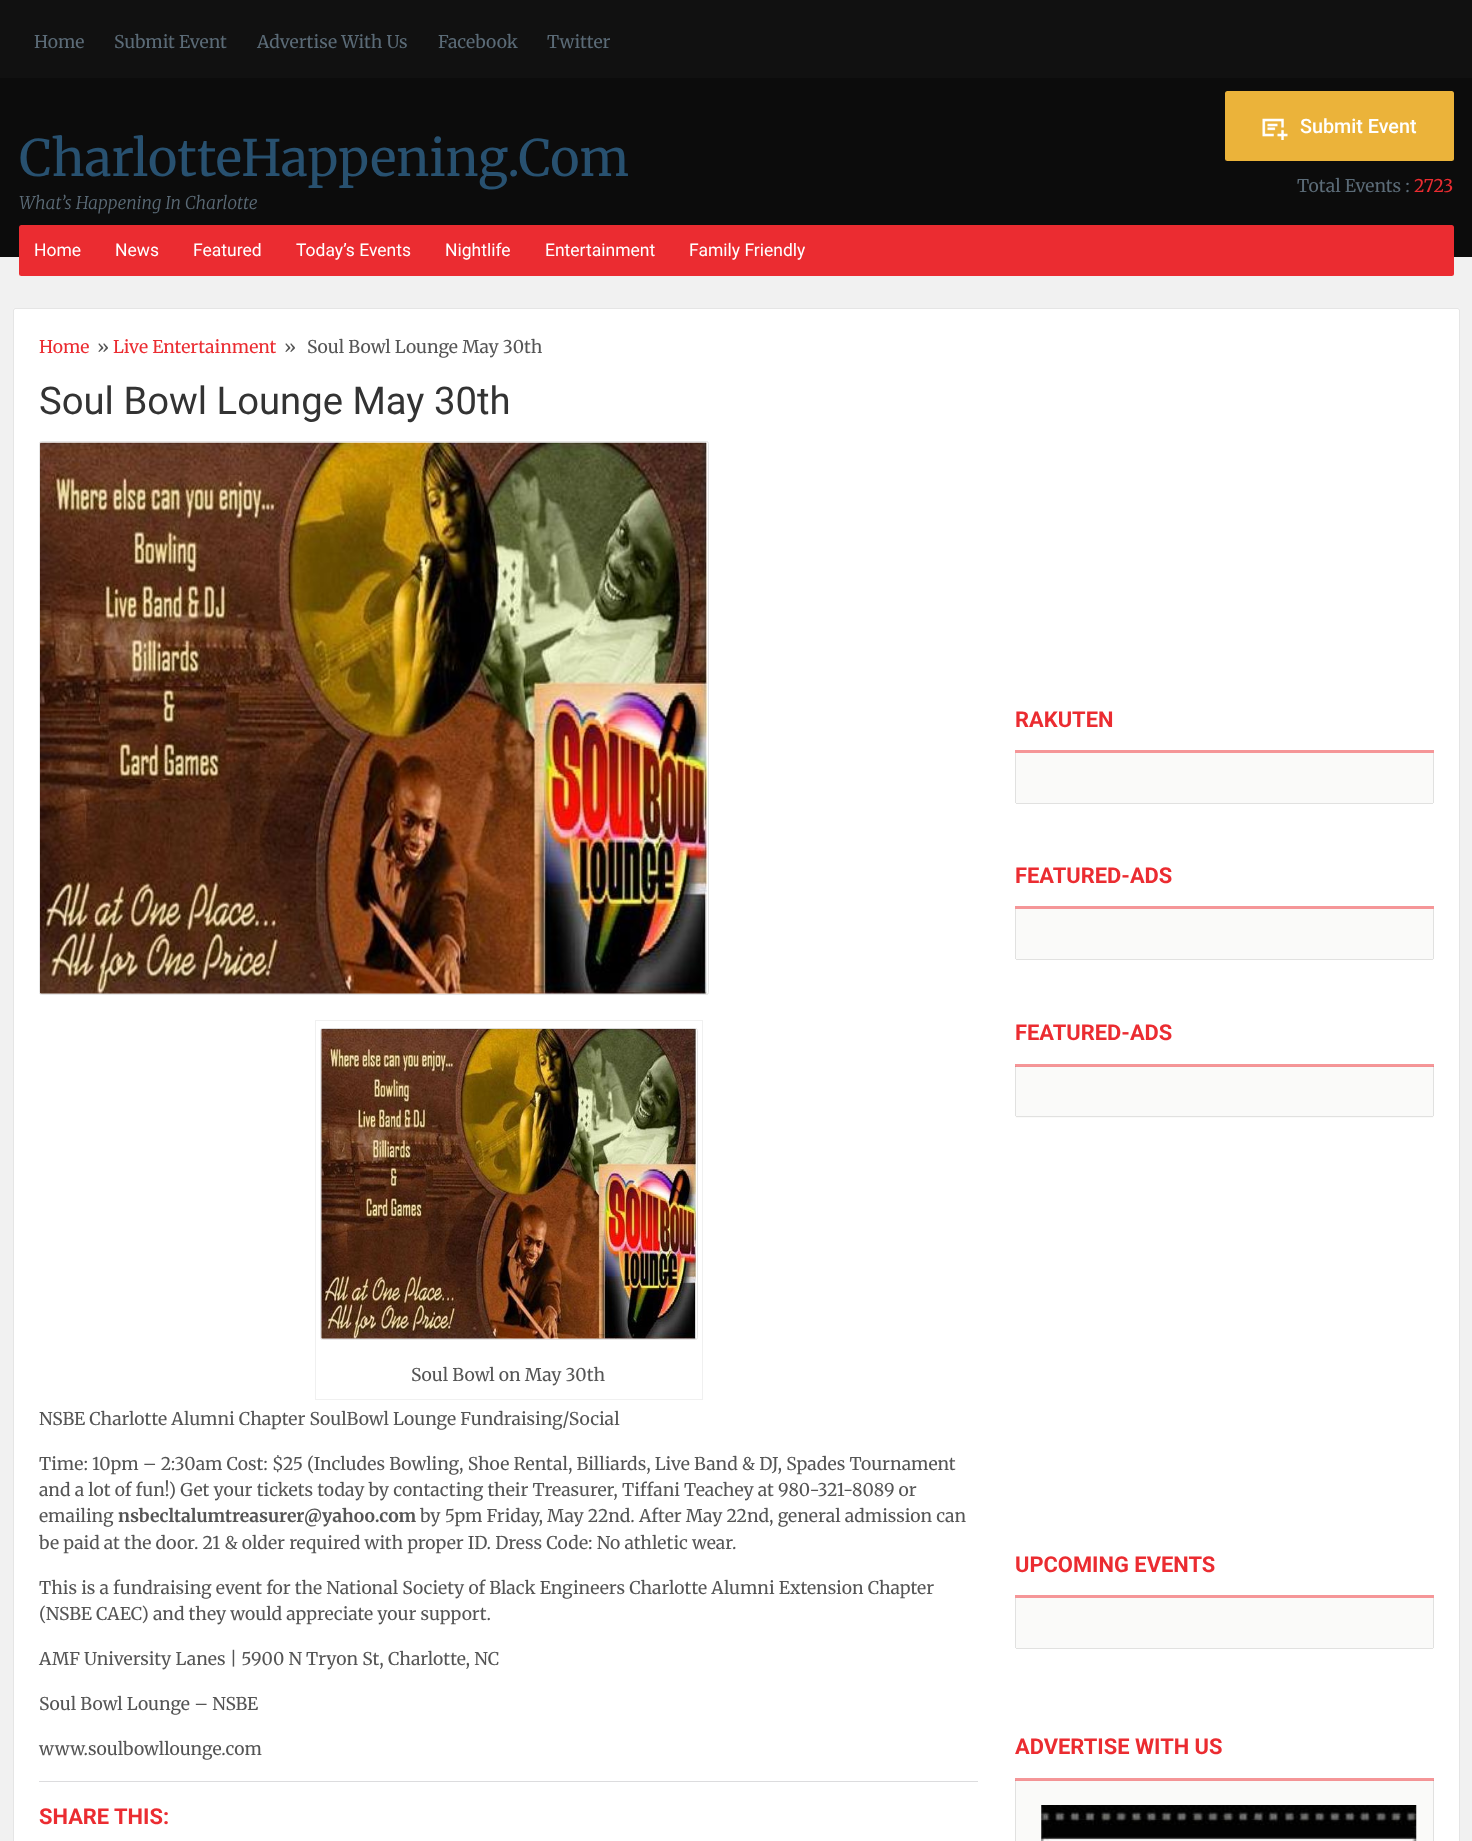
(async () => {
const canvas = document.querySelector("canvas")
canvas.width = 1472
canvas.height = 1841
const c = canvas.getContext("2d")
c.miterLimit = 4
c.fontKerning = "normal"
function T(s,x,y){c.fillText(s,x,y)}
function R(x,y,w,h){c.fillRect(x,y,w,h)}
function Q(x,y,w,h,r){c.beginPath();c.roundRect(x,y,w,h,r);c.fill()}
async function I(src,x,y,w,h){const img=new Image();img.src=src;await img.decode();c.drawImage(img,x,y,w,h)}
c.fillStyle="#f1f1f1"
R(0,0,1472,1841)
c.fillStyle="#111"
R(0,0,1472,78)
c.font="17.5px Merriweather"
c.fillStyle="#5b6b77"
T("Home",34,48)
T("Submit Event",114,48)
T("Advertise With Us",257,48)
T("Facebook",438,48)
T("Twitter",547,48)
c.fillStyle="#0c0c0c"
R(0,78,1472,179)
c.font="50px Merriweather"
c.fillStyle="#285170"
T("CharlotteHappening.Com",19,176)
c.font="italic 300 17.5px Merriweather"
c.fillStyle="#5b6b77"
T("What’s Happening In Charlotte",19,209)
c.fillStyle="#ebb33a"
Q(1225,91,229,70,2.5)
await I("1.png",1262,118,26,22)
c.font="500 19.75px Roboto"
c.fillStyle="#fff"
T("Submit Event",1300,133)
c.font="17.5px Merriweather"
c.fillStyle="#5b6b77"
T("Total Events :",1297,192)
c.fillStyle="#eb2c31"
T("2723",1414,192)
Q(19,225,1435,51,2.5)
c.font="17.5px Roboto"
c.fillStyle="#fff"
T("Home",34,256)
T("News",115,256)
T("Featured",193,256)
T("Today’s Events",296,256)
T("Nightlife",445,256)
T("Entertainment",545,256)
T("Family Friendly",689,256)
Q(13,308,1447,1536,2.5)
c.beginPath()
c.roundRect(13.5,308.5,1446,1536,2)
c.strokeStyle="#0000001a"
c.stroke()
c.font="17.5px Merriweather"
c.fillStyle="#eb2c31"
T("Home",39,353)
c.fillStyle="#555"
T("»",97,353)
c.fillStyle="#eb2c31"
T("Live Entertainment",113,353)
c.fillStyle="#555"
T("»",284,353)
T("Soul Bowl Lounge May 30th",307,353)
c.font="38.25px Roboto"
c.fillStyle="#333"
T("Soul Bowl Lounge May 30th",39,414)
c.beginPath()
c.roundRect(39.5,441.5,669,553,2)
c.strokeStyle="#e6e6e6"
c.stroke()
await I("2.png",40,442,668,552)
c.strokeStyle="#f0f0f0"
c.strokeRect(315.5,1020.5,387,379)
c.beginPath()
c.roundRect(320.5,1028.5,377,311,2)
c.strokeStyle="#e6e6e6"
c.stroke()
await I("3.png",321,1028,376,311)
c.font="17.5px Merriweather"
c.fillStyle="#555"
T("Soul Bowl on May 30th",411,1381)
T("NSBE Charlotte Alumni Chapter SoulBowl Lounge Fundraising/Social",39,1425)
T("Time: 10pm – 2:30am Cost: $25 (Includes Bowling, Shoe Rental, Billiards, Live Band & DJ, Spades Tournament",39,1470)
T("and a lot of fun!) Get your tickets today by contacting their Treasurer, Tiffani Teachey at 980-321-8089 or",39,1496)
T("emailing",39,1522)
c.font="bold 17.5px Merriweather"
T("nsbecltalumtreasurer@yahoo.com",118,1522)
c.font="17.5px Merriweather"
T("by 5pm Friday, May 22nd. After May 22nd, general admission can",420,1522)
T("be paid at the door. 21 & older required with proper ID. Dress Code: No athletic wear.",39,1549)
T("This is a fundraising event for the National Society of Black Engineers Charlotte Alumni Extension Chapter",39,1594)
T("(NSBE CAEC) and they would appreciate your support.",39,1620)
T("AMF University Lanes | 5900 N Tryon St, Charlotte, NC",39,1665)
T("Soul Bowl Lounge – NSBE",39,1710)
T("www.soulbowllounge.com",39,1755)
c.fillStyle="#dcdcde"
R(39,1781,939,1)
c.font="bold 21.9px Roboto"
c.fillStyle="#eb2c31"
T("SHARE THIS:",39,1824)
c.fillStyle="#fafaf9"
c.beginPath()
c.roundRect(1015,709,419,95,[0,0,2.5,2.5])
c.fill()
c.fillStyle="#e1e1e0"
R(1433,753,1,50)
R(1016,803,417,1)
R(1015,753,1,50)
c.fillStyle="#fff"
R(1015,709,419,41)
c.fillStyle="#f59698"
R(1015,750,419,3)
c.fillStyle="#eb2c31"
T("RAKUTEN",1015,727)
c.fillStyle="#fafaf9"
c.beginPath()
c.roundRect(1015,866,419,94,[0,0,2.5,2.5])
c.fill()
c.fillStyle="#e1e1e0"
R(1433,909,1,50)
R(1016,959,417,1)
R(1015,909,1,50)
c.fillStyle="#fff"
R(1015,866,419,40)
c.fillStyle="#f59698"
R(1015,906,419,3)
c.fillStyle="#eb2c31"
T("FEATURED-ADS",1015,883)
c.fillStyle="#fafaf9"
c.beginPath()
c.roundRect(1015,1023,419,95,[0,0,2.5,2.5])
c.fill()
c.fillStyle="#f39395"
R(1015,1066,419,1)
c.fillStyle="#e1e1e0"
R(1433,1067,1,49)
c.fillStyle="#e68789"
R(1433,1064,1,3)
c.fillStyle="#e1e1e0"
R(1016,1116,417,1)
R(1015,1067,1,49)
c.fillStyle="#e68789"
R(1015,1064,1,3)
c.fillStyle="#fff"
R(1015,1023,419,41)
c.fillStyle="#f59698"
R(1015,1064,419,2)
c.fillStyle="#eb2c31"
T("FEATURED-ADS",1015,1040)
c.fillStyle="#fafaf9"
c.beginPath()
c.roundRect(1015,1555,419,94,[0,0,2.5,2.5])
c.fill()
c.fillStyle="#e1e1e0"
R(1433,1598,1,50)
R(1016,1648,417,1)
R(1015,1598,1,50)
c.fillStyle="#fff"
R(1015,1555,419,40)
c.fillStyle="#f59698"
R(1015,1595,419,3)
c.fillStyle="#eb2c31"
T("UPCOMING EVENTS",1015,1572)
c.fillStyle="#fafaf9"
R(1016,1781,417,60)
c.fillStyle="#f39395"
R(1015,1780,419,1)
c.fillStyle="#e1e1e0"
R(1433,1781,1,60)
c.fillStyle="#e68789"
R(1433,1778,1,3)
c.fillStyle="#e1e1e0"
R(1015,1781,1,60)
c.fillStyle="#e68789"
R(1015,1778,1,3)
c.fillStyle="#f59698"
R(1015,1778,419,2)
c.fillStyle="#eb2c31"
T("ADVERTISE WITH US",1015,1754)
await I("4.png",1041,1805,376,36)
})()
